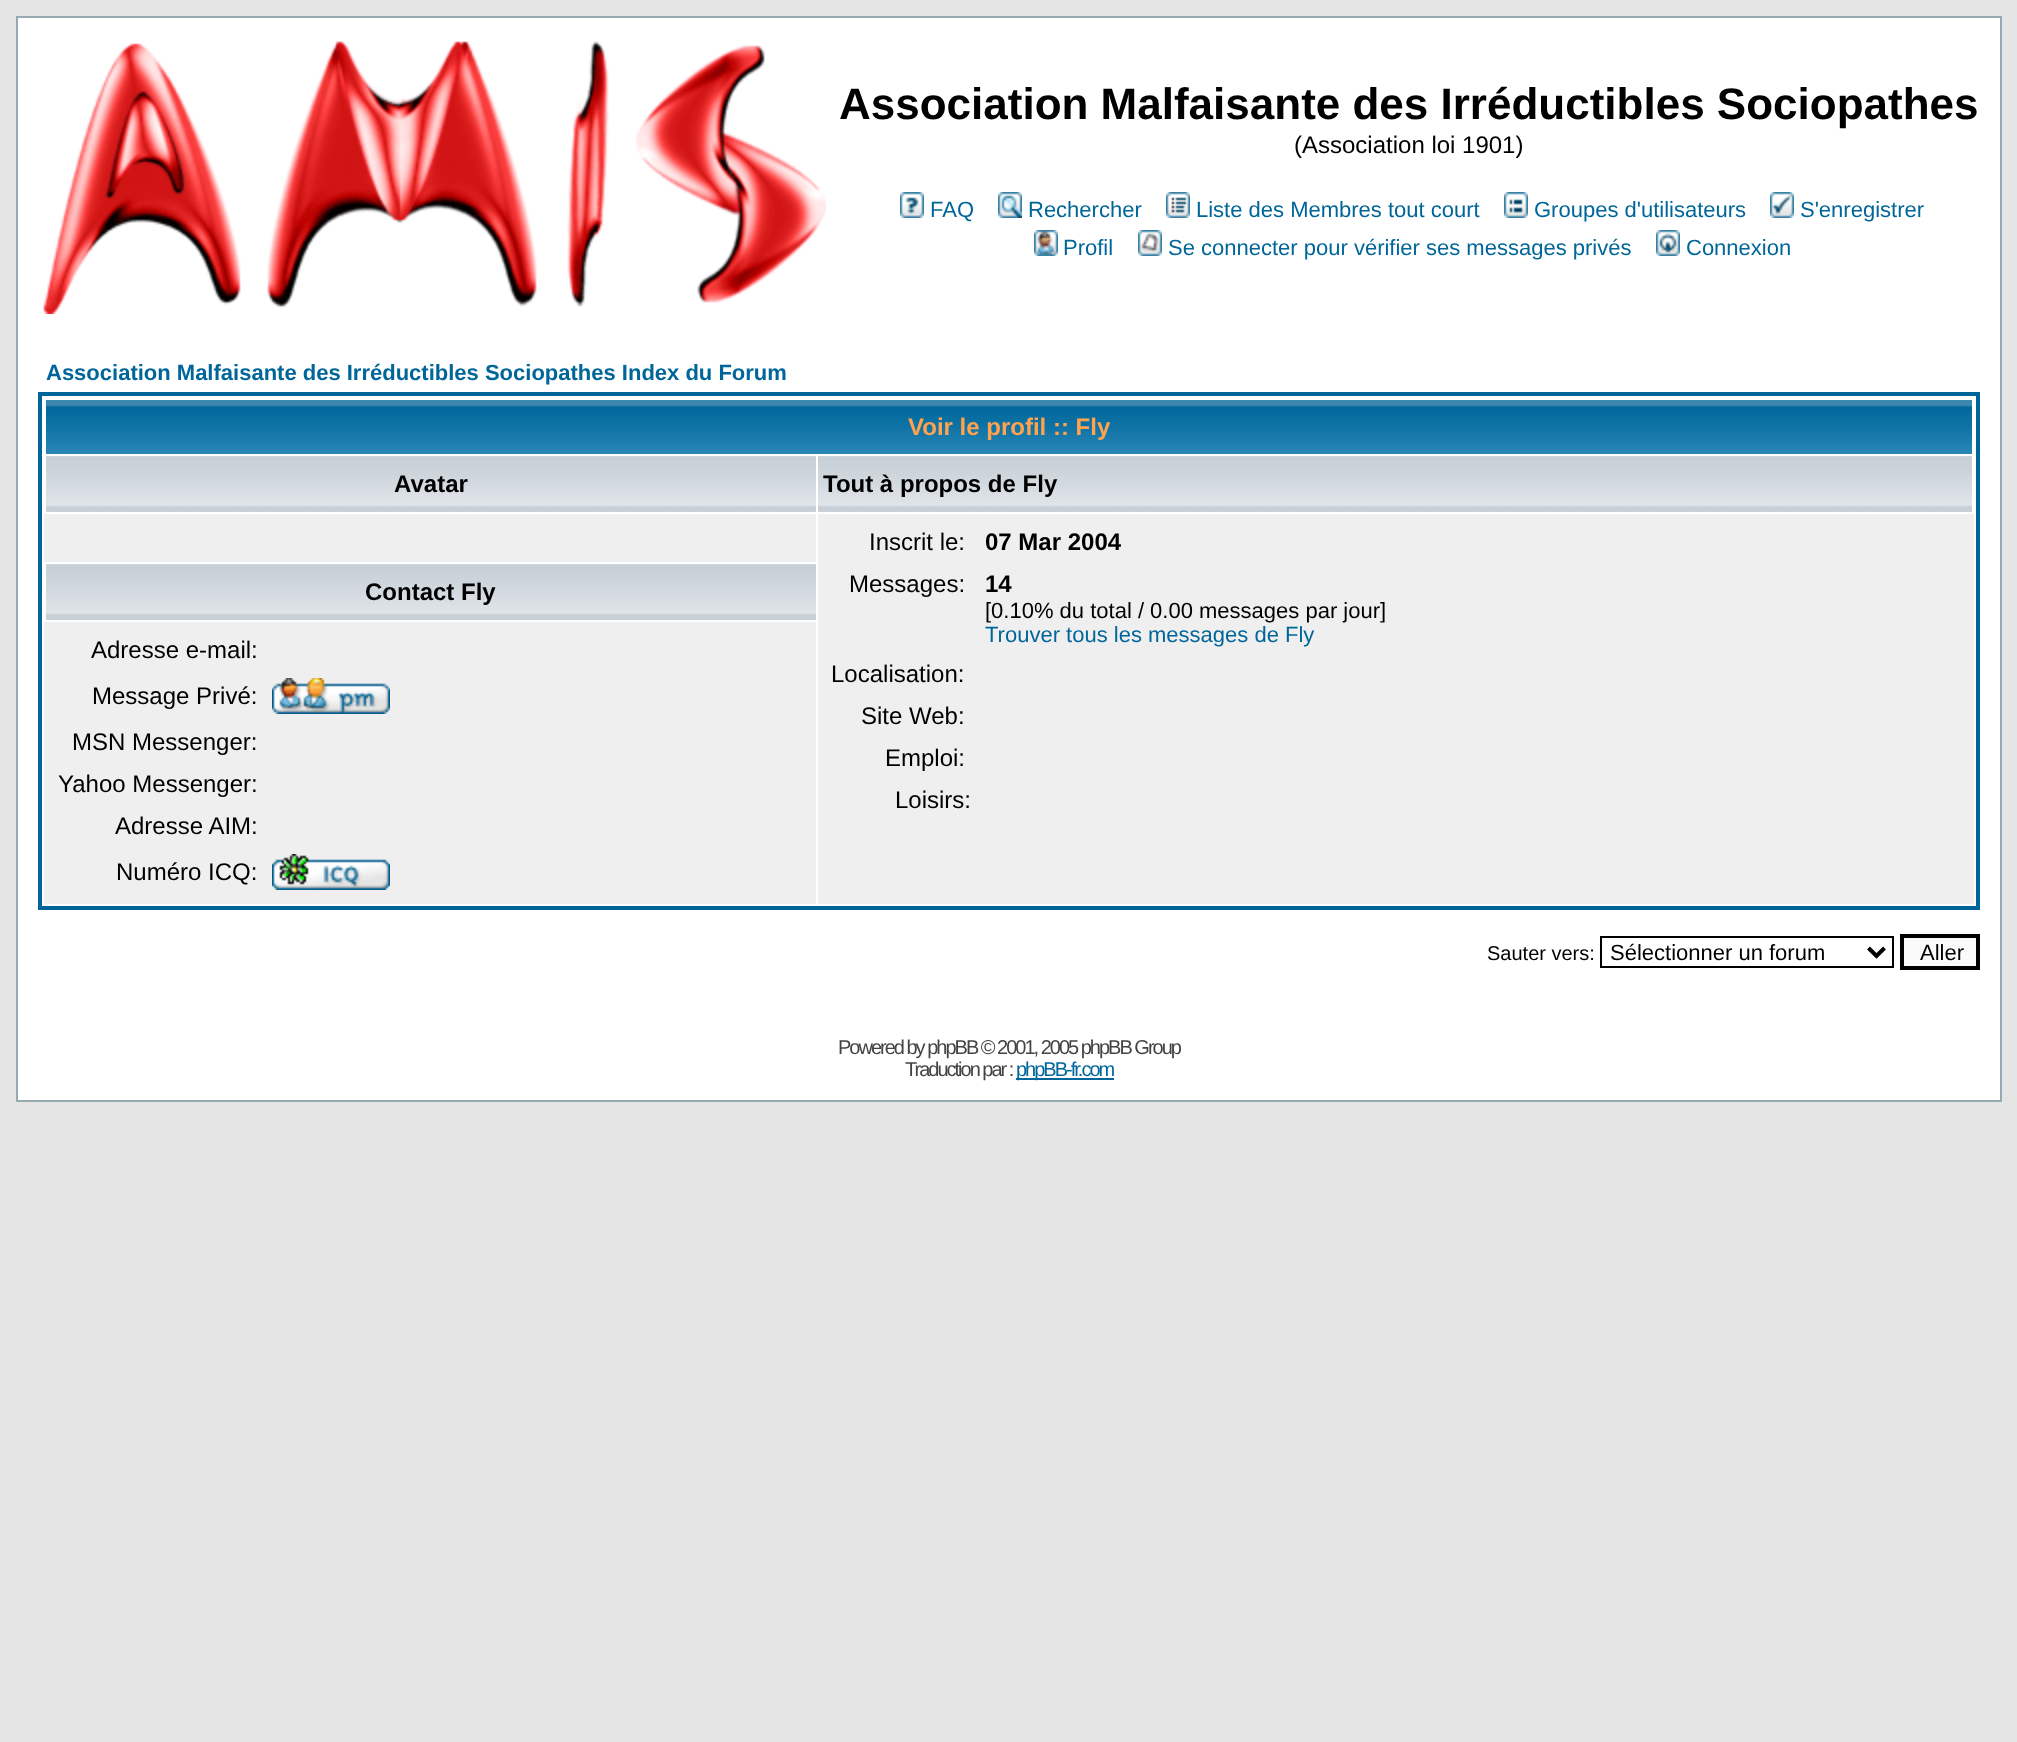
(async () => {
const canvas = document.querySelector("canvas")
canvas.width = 2017
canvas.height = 1742
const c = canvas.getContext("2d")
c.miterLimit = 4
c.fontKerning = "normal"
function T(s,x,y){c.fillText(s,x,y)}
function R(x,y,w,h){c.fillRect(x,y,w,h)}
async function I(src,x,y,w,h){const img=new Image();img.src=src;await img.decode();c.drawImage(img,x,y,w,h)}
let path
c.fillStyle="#e5e5e5"
R(0,0,2017,1742)
c.fillStyle="#fff"
c.beginPath()
c.rect(17,17,1984,1084)
c.fill()
c.strokeStyle="#98aab1"
c.lineWidth=2
c.stroke()
await I("1.png",43,40,784,274)
c.font="bold 44px Liberation Sans"
c.fillStyle="#000"
T("Association Malfaisante des Irréductibles Sociopathes",839,119)
c.font="24px Liberation Sans"
T("(Association loi 1901)",1294,153)
await I("2.png",900,192,24,26)
c.font="22px Liberation Sans"
c.fillStyle="#069"
T("FAQ",930,217)
await I("3.png",998,192,24,26)
T("Rechercher",1028,217)
await I("4.png",1166,192,24,26)
T("Liste des Membres tout court",1196,217)
await I("5.png",1504,192,24,26)
T("Groupes d'utilisateurs",1534,217)
await I("6.png",1770,192,24,26)
T("S'enregistrer",1800,217)
await I("7.png",1034,230,24,26)
T("Profil",1063,255)
await I("8.png",1138,230,24,26)
T("Se connecter pour vérifier ses messages privés",1168,255)
await I("9.png",1656,230,24,26)
T("Connexion",1686,255)
c.font="bold 22px Liberation Sans"
T("Association Malfaisante des Irréductibles Sociopathes Index du Forum",46,380)
c.strokeStyle="#069"
c.lineWidth=4
c.strokeRect(40,394,1938,514)
await I("10.png",46,400,1926,54)
c.font="bold 24px Liberation Sans"
c.fillStyle="#ffa34f"
T("Voir le profil :: Fly",908,435)
await I("11.png",46,456,770,56)
c.fillStyle="#000"
T("Avatar",394,492)
await I("12.png",818,456,1154,56)
T("Tout à propos de Fly",823,492)
await I("11.png",46,564,770,56)
T("Contact Fly",365,600)
c.fillStyle="#efefef"
R(44,514,772,48)
R(818,514,1156,390)
c.font="24px Liberation Sans"
c.fillStyle="#000"
T("Inscrit le:",869,550)
c.font="bold 24px Liberation Sans"
T("07 Mar 2004",985,550)
c.font="24px Liberation Sans"
T("Messages:",849,592)
c.font="bold 24px Liberation Sans"
T("14",985,592)
c.font="22px Liberation Sans"
T("[0.10% du total / 0.00 messages par jour]",985,618)
c.fillStyle="#069"
T("Trouver tous les messages de Fly",985,642)
c.font="24px Liberation Sans"
c.fillStyle="#000"
T("Localisation:",831,682)
T("Site Web:",861,724)
T("Emploi:",885,766)
T("Loisirs:",895,808)
c.fillStyle="#efefef"
R(44,622,772,282)
c.fillStyle="#000"
T("Adresse e-mail:",91,658)
T("Message Privé:",92,704)
await I("13.png",272,678,118,36)
T("MSN Messenger:",72,750)
T("Yahoo Messenger:",58,792)
T("Adresse AIM:",115,834)
T("Numéro ICQ:",116,880)
await I("14.png",272,854,118,36)
c.font="20px Liberation Sans"
T("Sauter vers:",1487,960)
c.strokeStyle="#000"
c.lineWidth=2
c.strokeRect(1601,937,292,30)
path = new Path2D("M1868.5 948l8 8l8-8")
c.lineWidth=4
c.stroke(path)
c.font="22px Liberation Sans"
T("Sélectionner un forum",1610,960)
c.fillStyle="#fafafa"
c.beginPath()
c.rect(1902,936,76,32)
c.fill()
c.stroke()
c.fillStyle="#000"
T("Aller",1920,960)
c.letterSpacing="-2px"
c.font="20px Liberation Sans"
c.fillStyle="#444"
T("Powered by phpBB © 2001, 2005 phpBB Group",838,1054)
T("Traduction par :",905,1076)
c.fillStyle="#069"
R(1016,1078,98,2)
T("phpBB-fr.com",1016,1076)
})()
